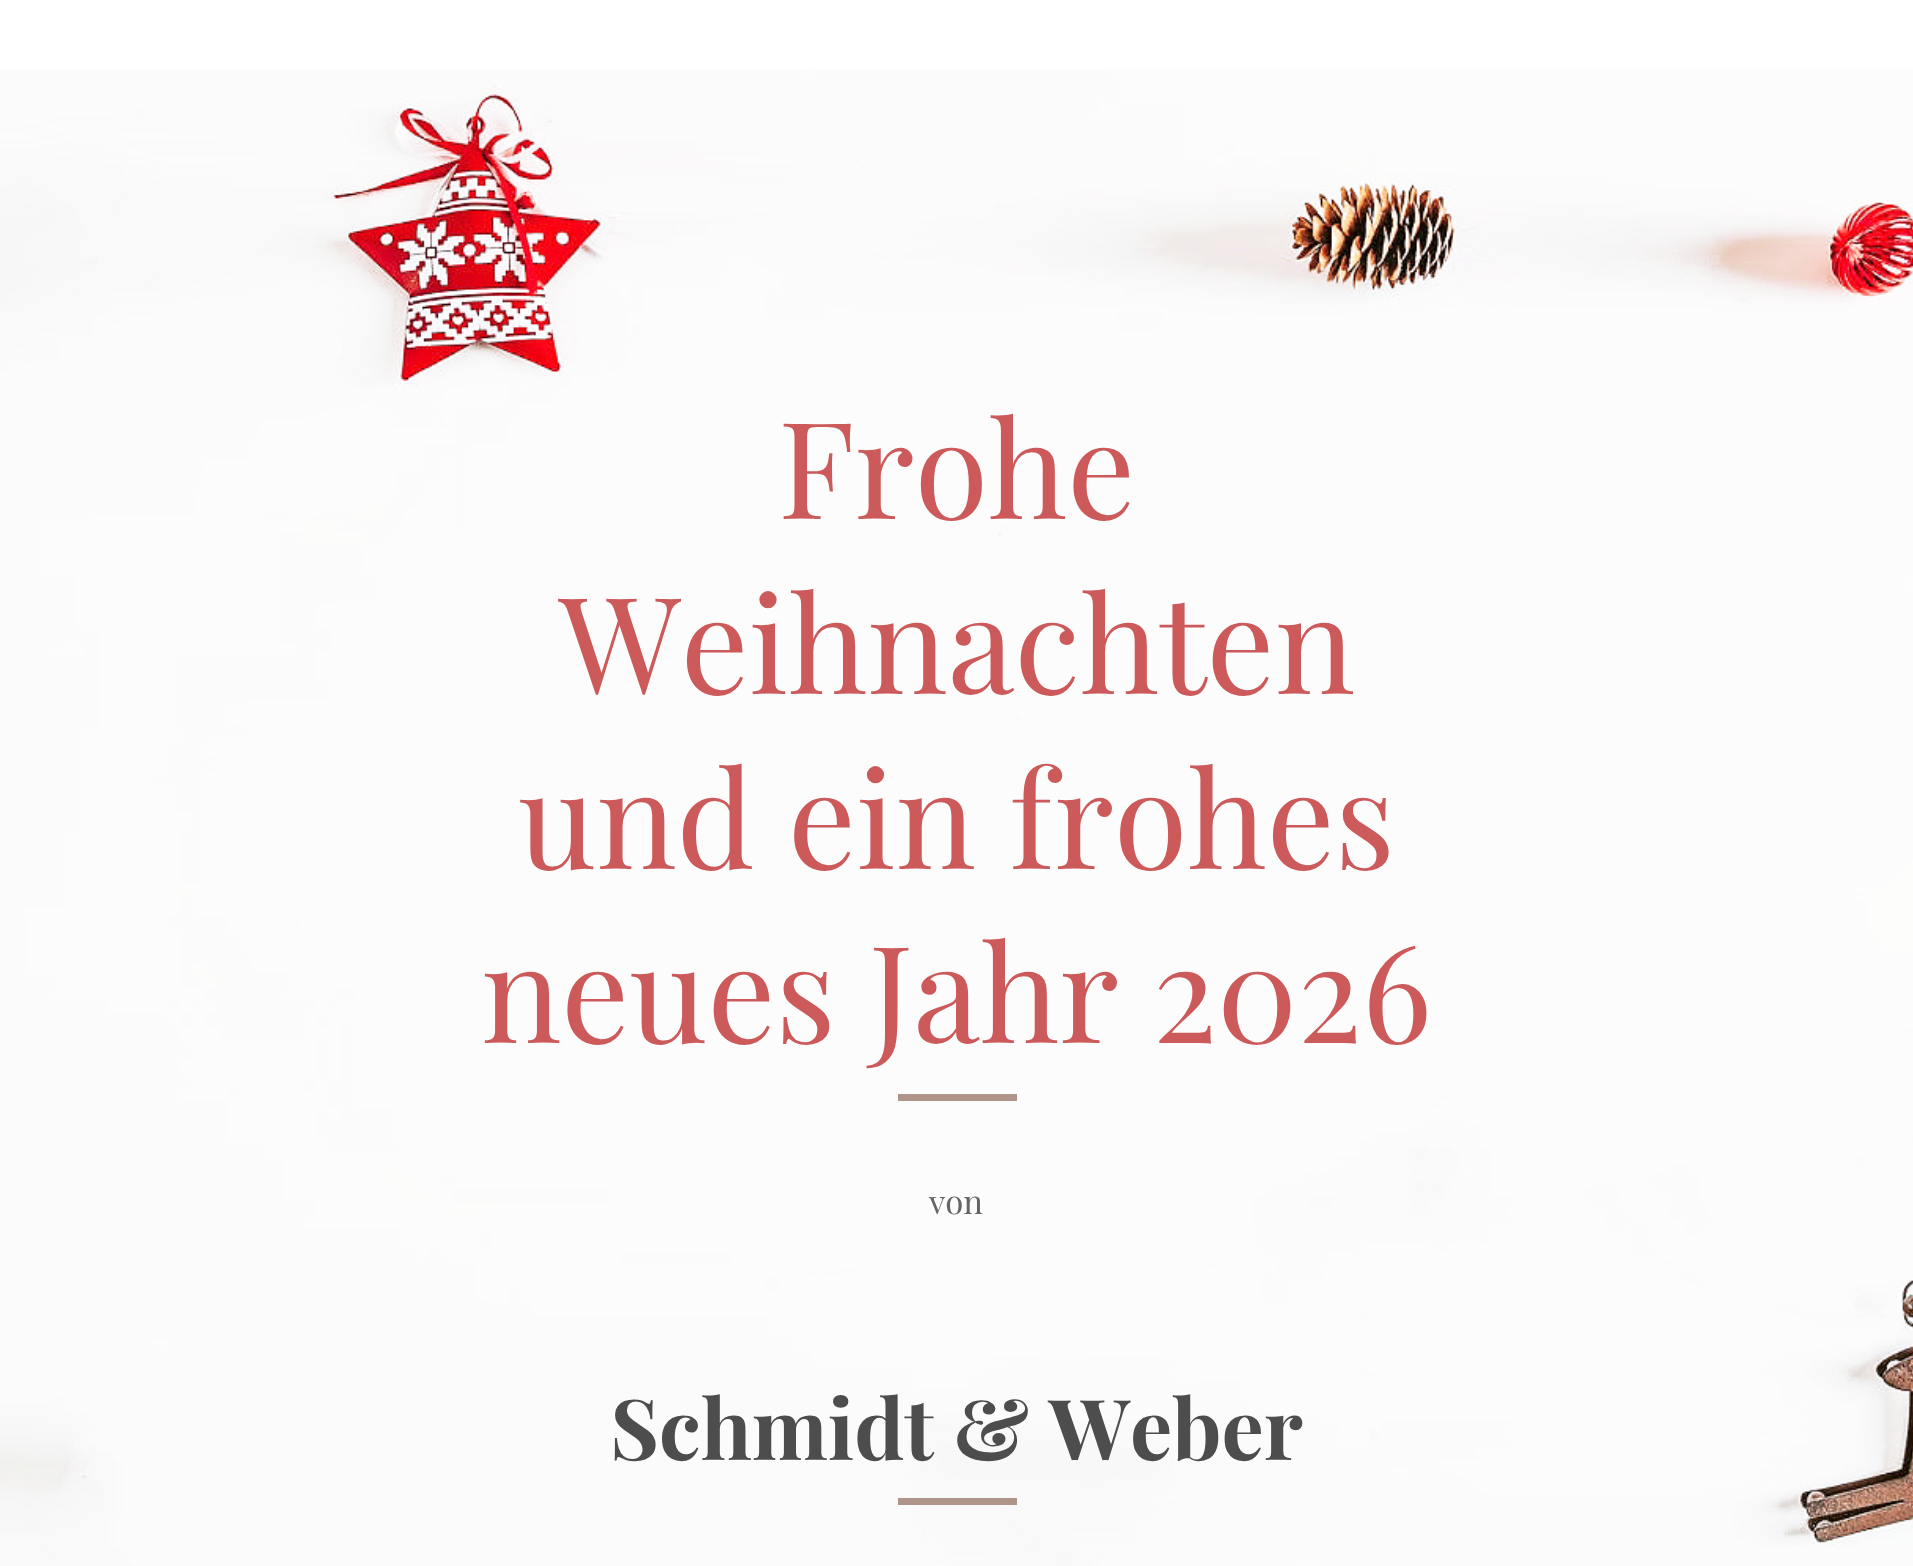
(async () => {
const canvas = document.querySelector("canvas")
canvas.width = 1913
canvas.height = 1566
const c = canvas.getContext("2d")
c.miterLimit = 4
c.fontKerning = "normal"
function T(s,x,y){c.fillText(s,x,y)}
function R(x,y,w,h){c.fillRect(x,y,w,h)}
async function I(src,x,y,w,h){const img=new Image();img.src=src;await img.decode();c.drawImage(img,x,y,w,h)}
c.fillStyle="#fff"
R(0,0,1913,1566)
await I("1.png",0,69,1913,1497)
c.font="134.5px Playfair Display"
c.fillStyle="#cc5a5a"
T("Frohe",778,519)
T("Weihnachten",559,694)
T("und ein frohes",518,869)
T("neues Jahr 2026",481,1043)
c.fillStyle="#af948a"
R(898,1094,119,7)
c.font="33px Playfair Display"
c.fillStyle="#656565"
T("von",929,1214)
c.font="bold 84px Playfair Display"
c.fillStyle="#4d4d4d"
T("Schmidt & Weber",610,1460)
c.fillStyle="#af948a"
R(898,1498,119,7)
})()
